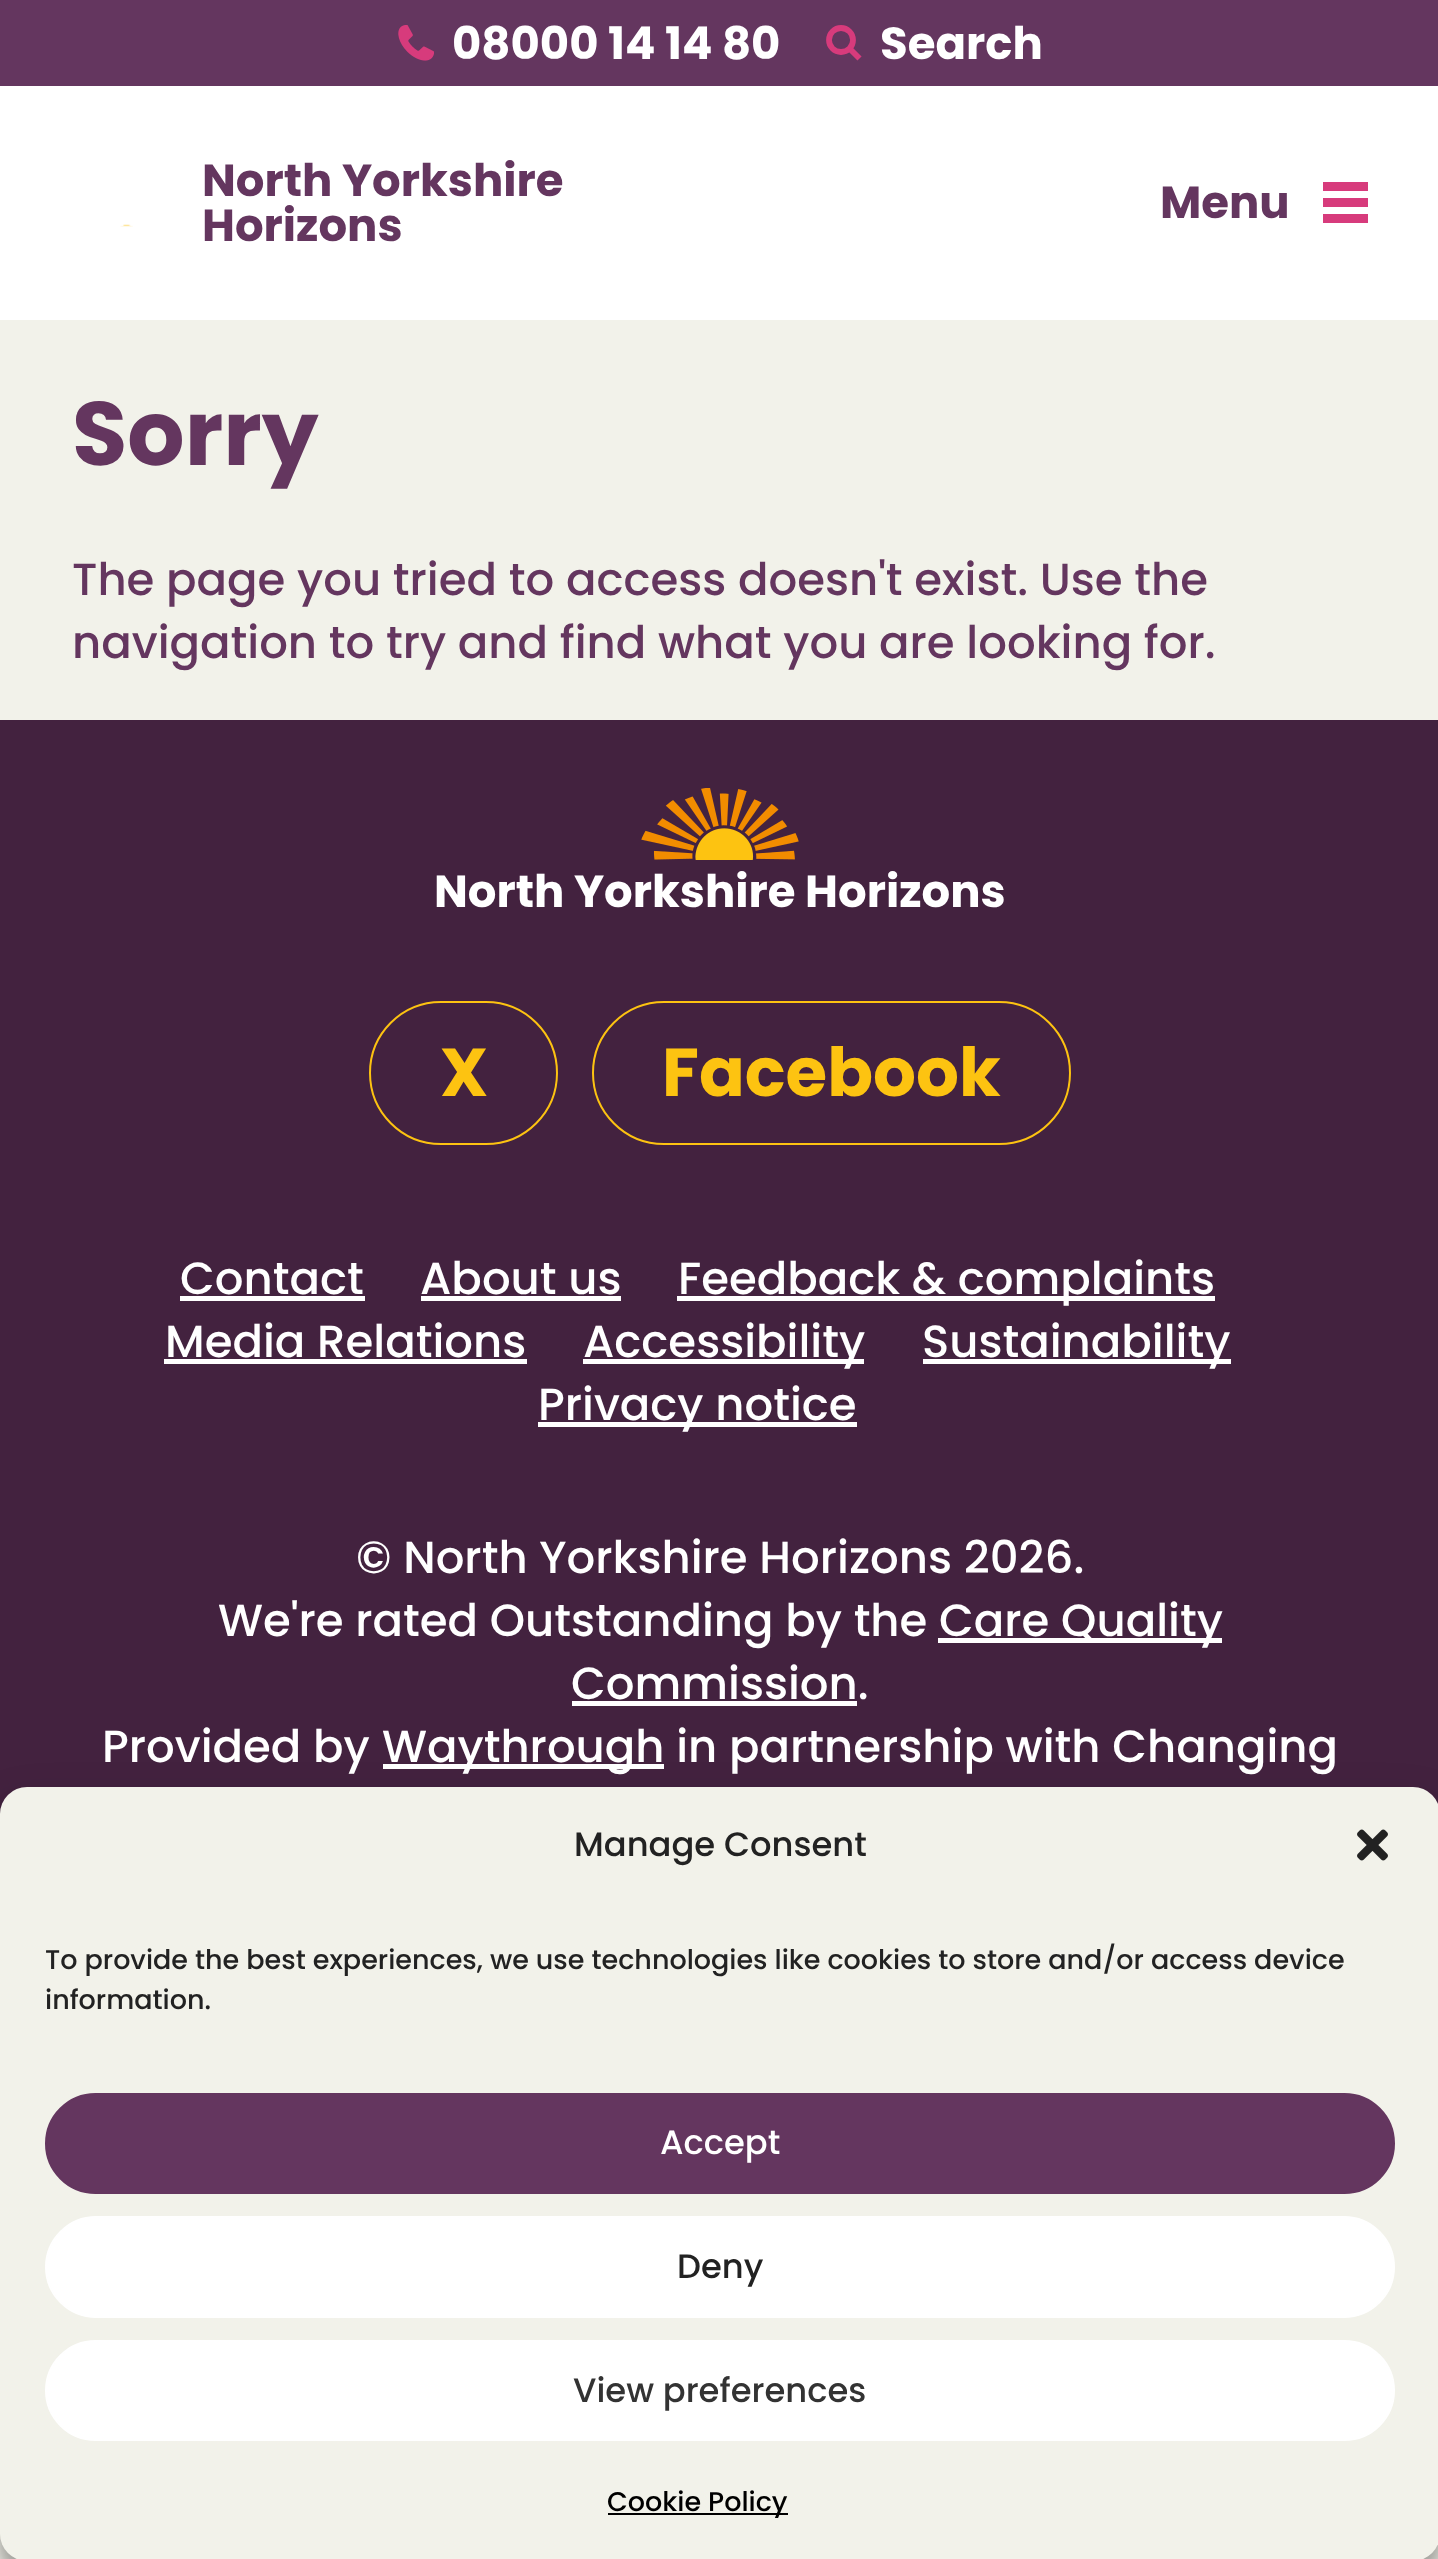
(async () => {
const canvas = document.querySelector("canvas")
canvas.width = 1438
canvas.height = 2559
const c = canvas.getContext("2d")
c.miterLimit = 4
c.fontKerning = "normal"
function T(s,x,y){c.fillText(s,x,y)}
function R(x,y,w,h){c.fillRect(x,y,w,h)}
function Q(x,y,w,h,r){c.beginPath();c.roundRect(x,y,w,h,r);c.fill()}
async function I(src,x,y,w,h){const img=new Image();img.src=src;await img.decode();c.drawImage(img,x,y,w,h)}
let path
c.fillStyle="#f2f2ea"
R(0,0,1438,2559)
c.fillStyle="#64365f"
R(0,0,1438,86)
await I("1.png",398,25,36,36)
c.font="bold 45px Poppins"
c.fillStyle="#fff"
T("08000 14 14 80",452,59)
c.beginPath()
c.arc(841,40,12,0,7)
c.strokeStyle="#d73b7c"
c.lineWidth=5.8
c.stroke()
path = new Path2D("M859.5 58.5l-9.5-9.5")
c.stroke(path)
T("Search",880,59)
R(0,86,1438,234)
await I("2.png",120,224,13,3)
c.fillStyle="#64365f"
T("North Yorkshire",202,196)
T("Horizons",202,241)
T("Menu",1160,218)
c.fillStyle="#d73b7c"
R(1323,214,45,9)
R(1323,182,45,9)
R(1323,198,45,9)
c.font="bold 90px Poppins"
c.fillStyle="#64365f"
T("Sorry",72,465)
c.font="500 45px Poppins"
T("The page you tried to access doesn't exist. Use the",72,595)
T("navigation to try and find what you are looking for.",72,658)
c.fillStyle="#43223f"
R(0,720,1438,1094)
await I("3.png",641,788,158,72)
c.font="bold 45px Poppins"
c.fillStyle="#fff"
T("North Yorkshire Horizons",434,907)
c.beginPath()
c.roundRect(370,1002,187,142,71)
c.strokeStyle="#fdc311"
c.lineWidth=2
c.stroke()
c.font="bold 67.5px Poppins"
c.fillStyle="#fdc311"
T("X",440,1096)
c.beginPath()
c.roundRect(593,1002,477,142,71)
c.stroke()
T("Facebook",662,1096)
c.font="500 45px Poppins"
c.fillStyle="#fff"
T("Contact",180,1294)
R(180,1296,185,5)
T("About us",420,1294)
R(421,1296,200,5)
R(677,1296,538,5)
T("Feedback & complaints",678,1294)
T("Media Relations",165,1357)
R(164,1359,363,5)
R(583,1359,281,5)
T("Accessibility",583,1357)
R(923,1359,308,5)
T("Sustainability",922,1357)
R(538,1422,319,5)
T("Privacy notice",538,1420)
T("© North Yorkshire Horizons 2026.",356,1573)
T("We're rated Outstanding by the",218,1636)
R(938,1638,284,5)
T("Care Quality",939,1636)
T("Commission.",571,1699)
R(572,1701,285,5)
T("Provided by",102,1762)
R(383,1764,281,5)
T("Waythrough in partnership with Changing",382,1762)
c.fillStyle="#0000003b"
c.filter="blur(7px)"
c.beginPath()
c.roundRect(0,1800,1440,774,27)
c.fill()
c.filter="none"
c.fillStyle="#00000030"
c.filter="blur(22.5px)"
c.beginPath()
c.roundRect(0,1809,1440,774,27)
c.fill()
c.filter="none"
c.fillStyle="#f2f2ea"
Q(0,1787,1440,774,27)
c.font="500 33.75px Poppins"
c.fillStyle="#222"
T("Manage Consent",574,1856)
await I("4.png",1357,1829,31,32)
c.font="500 27px Poppins"
T("To provide the best experiences, we use technologies like cookies to store and/or access device",45,1969)
T("information.",45,2009)
c.fillStyle="#64365f"
c.beginPath()
c.roundRect(46,2094,1348,99,49.5)
c.fill()
c.strokeStyle="#64365f"
c.stroke()
c.font="500 33.75px Poppins"
c.fillStyle="#fff"
T("Accept",660,2154)
c.beginPath()
c.roundRect(46,2217,1348,100,50)
c.fill()
c.strokeStyle="#fff"
c.stroke()
c.fillStyle="#222"
T("Deny",677,2278)
c.fillStyle="#fff"
c.beginPath()
c.roundRect(46,2341,1348,99,49.5)
c.fill()
c.stroke()
c.fillStyle="#333"
T("View preferences",573,2402)
c.fillStyle="#000"
R(608,2513,180,2)
c.font="500 27px Poppins"
T("Cookie Policy",607,2511)
})()
